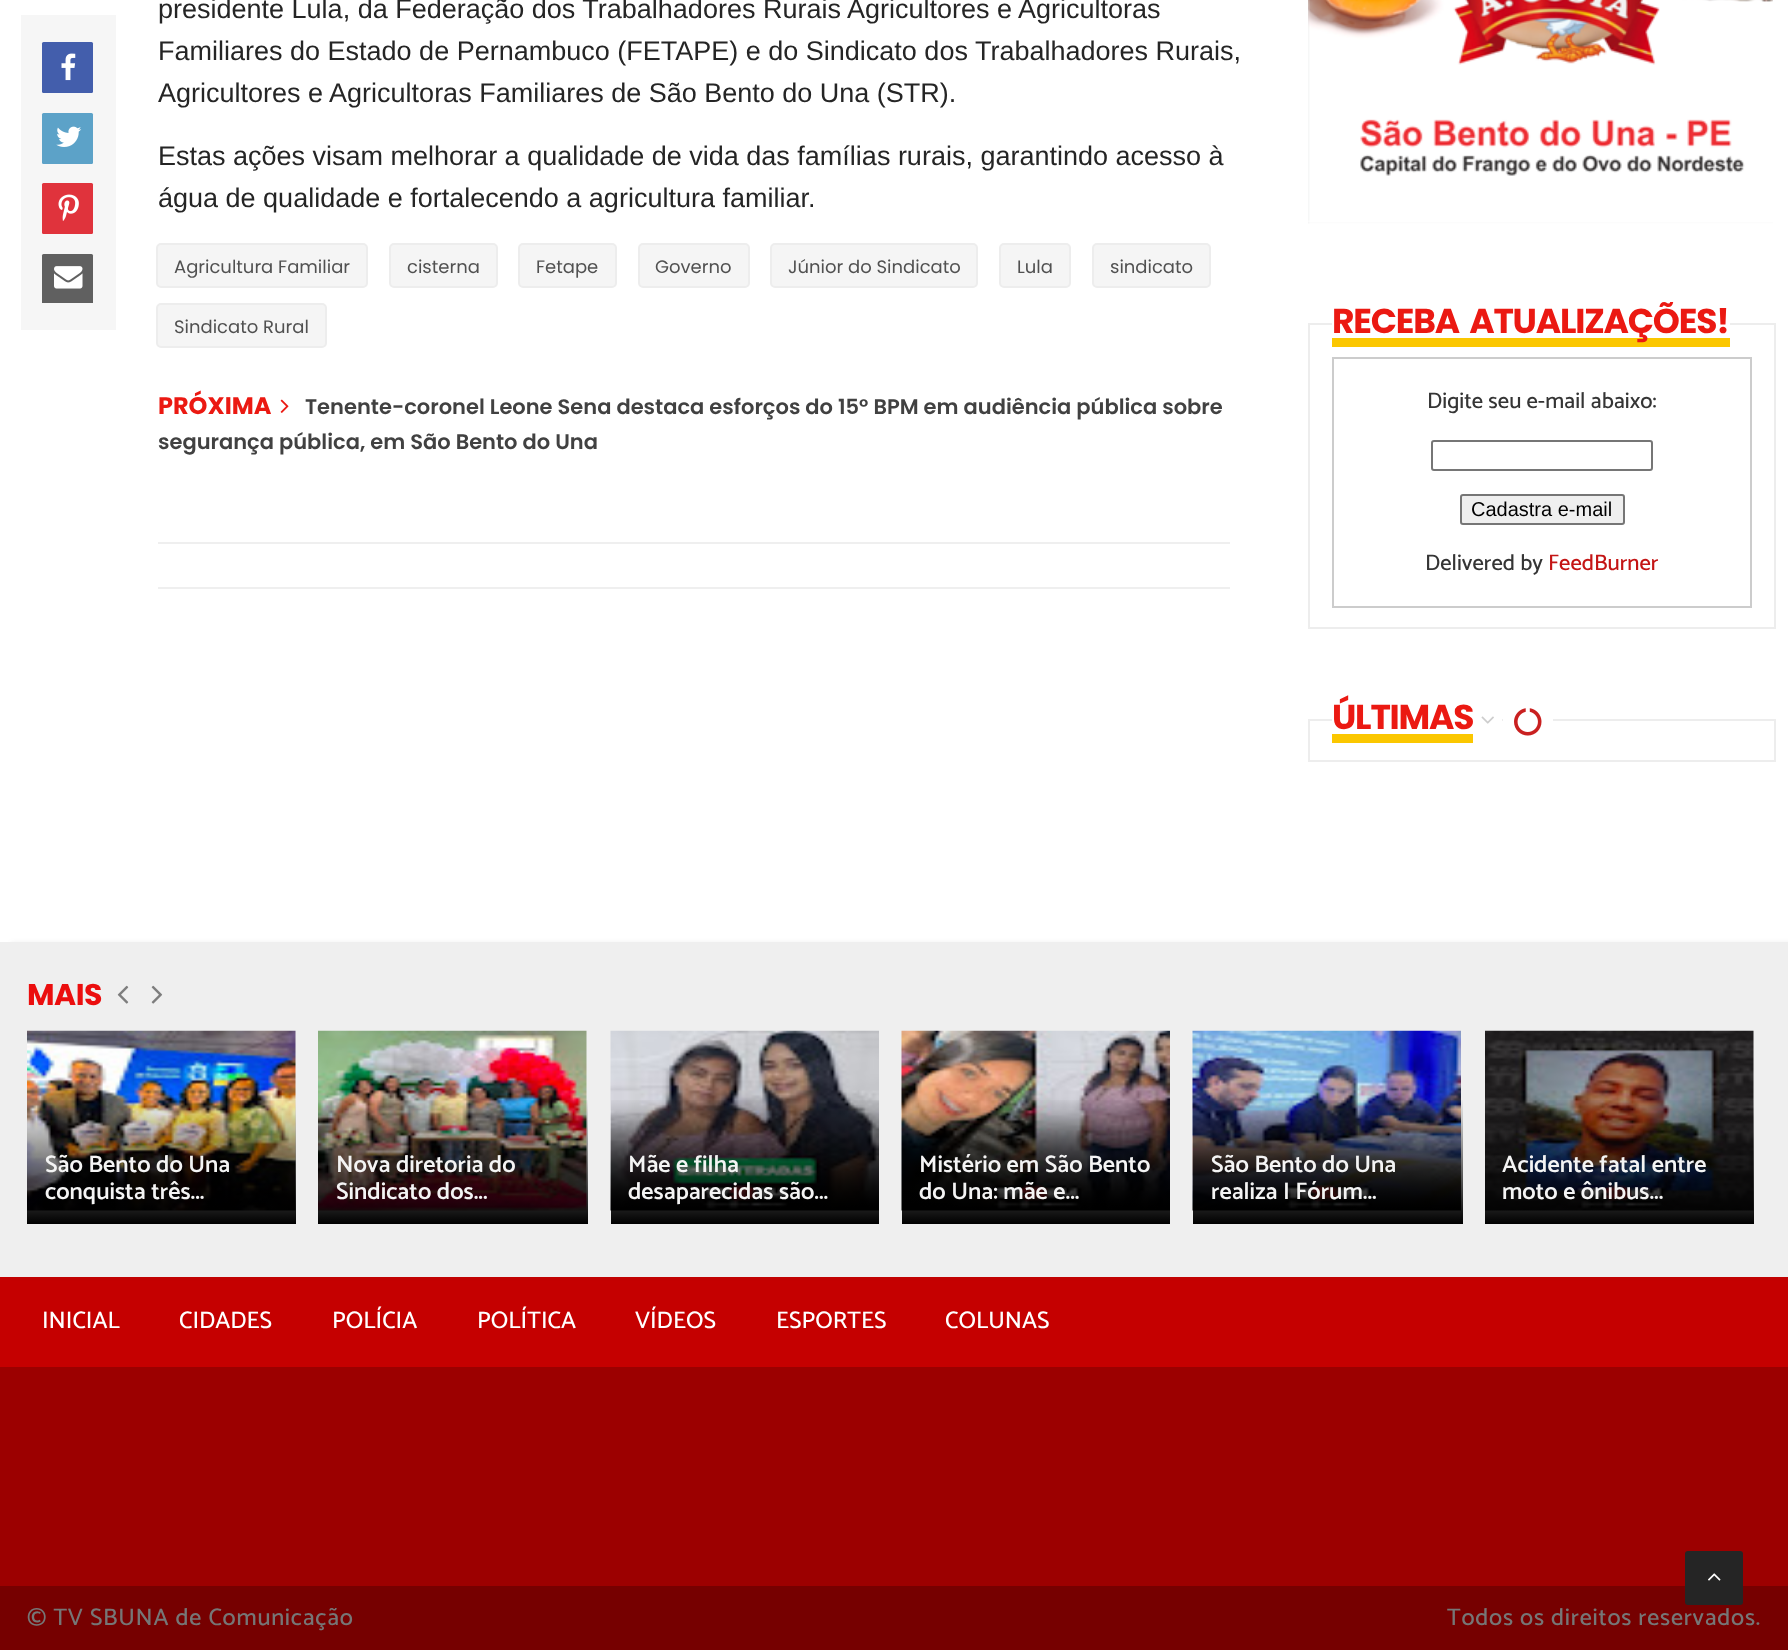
(async () => {
const canvas = document.querySelector("canvas")
canvas.width = 1788
canvas.height = 1650
const c = canvas.getContext("2d")
c.miterLimit = 4
c.fontKerning = "normal"
function T(s,x,y){c.fillText(s,x,y)}
function R(x,y,w,h){c.fillRect(x,y,w,h)}
function Q(x,y,w,h,r){c.beginPath();c.roundRect(x,y,w,h,r);c.fill()}
async function I(src,x,y,w,h){const img=new Image();img.src=src;await img.decode();c.drawImage(img,x,y,w,h)}
let gradient
c.fillStyle="#fff"
R(0,0,1788,1650)
c.fillStyle="#f6f6f6"
R(21,15,95,315)
c.fillStyle="#435eac"
Q(42,42,51,51,1.5)
await I("1.png",61,53,15,28)
c.fillStyle="#5ca2c8"
Q(42,113,51,51,1.5)
await I("2.png",56,126,26,21)
c.fillStyle="#e0333c"
Q(42,183,51,51,1.5)
await I("3.png",58,194,21,27)
c.fillStyle="#606060"
c.beginPath()
c.roundRect(42,254,51,49,[1.5,1.5,0,0])
c.fill()
await I("4.png",54,266,29,23)
c.font="27px Liberation Sans"
c.fillStyle="#252525"
T("presidente Lula, da Federação dos Trabalhadores Rurais Agricultores e Agricultoras",158,18)
T("Familiares do Estado de Pernambuco (FETAPE) e do Sindicato dos Trabalhadores Rurais,",158,60)
T("Agricultores e Agricultoras Familiares de São Bento do Una (STR).",158,102)
T("Estas ações visam melhorar a qualidade de vida das famílias rurais, garantindo acesso à",158,165)
T("água de qualidade e fortalecendo a agricultura familiar.",158,207)
c.fillStyle="#f5f5f5"
c.beginPath()
c.roundRect(157,244,210,43,4)
c.fill()
c.strokeStyle="#ededed"
c.lineWidth=2
c.stroke()
c.font="18px Poppins"
c.fillStyle="#515151"
T("Agricultura Familiar",174,273)
c.fillStyle="#f5f5f5"
c.beginPath()
c.roundRect(390,244,107,43,4)
c.fill()
c.stroke()
c.fillStyle="#515151"
T("cisterna",407,273)
c.fillStyle="#f5f5f5"
c.beginPath()
c.roundRect(519,244,97,43,4)
c.fill()
c.stroke()
c.fillStyle="#515151"
T("Fetape",536,273)
c.fillStyle="#f5f5f5"
c.beginPath()
c.roundRect(639,244,110,43,4)
c.fill()
c.stroke()
c.fillStyle="#515151"
T("Governo",655,273)
c.fillStyle="#f5f5f5"
c.beginPath()
c.roundRect(771,244,206,43,4)
c.fill()
c.stroke()
c.fillStyle="#515151"
T("Júnior do Sindicato",788,273)
c.fillStyle="#f5f5f5"
c.beginPath()
c.roundRect(1000,244,70,43,4)
c.fill()
c.stroke()
c.fillStyle="#515151"
T("Lula",1017,273)
c.fillStyle="#f5f5f5"
c.beginPath()
c.roundRect(1093,244,117,43,4)
c.fill()
c.stroke()
c.fillStyle="#515151"
T("sindicato",1110,273)
c.fillStyle="#f5f5f5"
c.beginPath()
c.roundRect(157,304,169,43,4)
c.fill()
c.stroke()
c.fillStyle="#515151"
T("Sindicato Rural",174,333)
c.font="bold 24px Poppins"
c.fillStyle="#eb1912"
T("PRÓXIMA",158,414)
await I("5.png",280,399,9,14)
c.font="600 21px Poppins"
c.fillStyle="#414141"
T("Tenente-coronel Leone Sena destaca esforços do 15° BPM em audiência pública sobre",305,414)
T("segurança pública, em São Bento do Una",158,449)
c.fillStyle="#efefef"
R(158,542,1072,2)
R(158,587,1072,2)
await I("6.png",1308,0,465,224)
c.strokeRect(1309,324,466,304)
c.fillStyle="#fff"
R(1332,323,398,2)
c.fillStyle="#fbc700"
R(1332,338,398,9)
c.letterSpacing="-1.2px"
c.wordSpacing="4px"
c.font="bold 34.5px Poppins"
c.fillStyle="#eb1912"
T("RECEBA ATUALIZAÇÕES!",1332,333)
c.strokeStyle="#ccc"
c.strokeRect(1333,358,418,249)
c.letterSpacing="0px"
c.wordSpacing="0px"
c.font="500 22.5px Catamaran"
c.fillStyle="#353535"
T("Digite seu e-mail abaixo:",1427,408)
c.beginPath()
c.roundRect(1432,441,220,29,2)
c.strokeStyle="#767676"
c.stroke()
c.fillStyle="#efefef"
c.beginPath()
c.roundRect(1461,495,163,29,2)
c.fill()
c.stroke()
c.font="20px Liberation Sans"
c.fillStyle="#000"
T("Cadastra e-mail",1471,516)
c.font="500 22.5px Catamaran"
c.fillStyle="#353535"
T("Delivered by",1425,570)
c.fillStyle="#c41515"
T("FeedBurner",1548,570)
c.strokeStyle="#ededed"
c.strokeRect(1309,720,466,41)
c.fillStyle="#fff"
R(1332,719,170,2)
c.fillStyle="#fbc700"
R(1332,734,141,9)
c.letterSpacing="-1.2px"
c.font="bold 34.5px Poppins"
c.fillStyle="#eb1912"
T("ÚLTIMAS",1332,729)
await I("7.png",1481,716,13,8)
c.fillStyle="#fff"
R(1503,719,50,2)
await I("8.png",1514,708,28,28)
c.fillStyle="#c50000"
R(0,1277,1788,90)
c.fillStyle="#56565617"
c.filter="blur(2px)"
c.beginPath()
c.rect(11,942,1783,335)
c.fill()
c.filter="none"
c.fillStyle="#efefef"
R(0,942,1788,335)
c.letterSpacing="-0.5px"
c.font="bold 30px Poppins"
c.fillStyle="#eb0e0e"
T("MAIS",27,1005)
await I("9.png",117,985,12,19)
await I("10.png",151,985,12,19)
await I("11.png",27,1030,269,181)
gradient = c.createLinearGradient(161,1097,161,1224)
gradient.addColorStop(0,"#00000000")
gradient.addColorStop(1,"#000")
c.fillStyle = gradient
R(27,1100,269,124)
c.letterSpacing="0px"
c.font="600 24px Catamaran"
c.fillStyle="#f4f4f4"
T("São Bento do Una",45,1172)
T("conquista três...",45,1199)
await I("12.png",318,1030,269,181)
gradient = c.createLinearGradient(453,1097,453,1224)
gradient.addColorStop(0,"#00000000")
gradient.addColorStop(1,"#000")
c.fillStyle = gradient
R(318,1100,270,124)
c.fillStyle="#f4f4f4"
T("Nova diretoria do",336,1172)
T("Sindicato dos...",336,1199)
await I("13.png",610,1030,269,181)
gradient = c.createLinearGradient(745,1097,745,1224)
gradient.addColorStop(0,"#00000000")
gradient.addColorStop(1,"#000")
c.fillStyle = gradient
R(611,1100,268,124)
c.fillStyle="#f4f4f4"
T("Mãe e filha",628,1172)
T("desaparecidas são...",628,1199)
await I("14.png",901,1030,269,181)
gradient = c.createLinearGradient(1036,1097,1036,1224)
gradient.addColorStop(0,"#00000000")
gradient.addColorStop(1,"#000")
c.fillStyle = gradient
R(902,1100,268,124)
c.fillStyle="#f4f4f4"
T("Mistério em São Bento",919,1172)
T("do Una: mãe e...",919,1199)
await I("15.png",1192,1030,269,181)
gradient = c.createLinearGradient(1328,1097,1328,1224)
gradient.addColorStop(0,"#00000000")
gradient.addColorStop(1,"#000")
c.fillStyle = gradient
R(1193,1100,270,124)
c.fillStyle="#f4f4f4"
T("São Bento do Una",1211,1172)
T("realiza I Fórum...",1211,1199)
await I("16.png",1485,1030,269,181)
gradient = c.createLinearGradient(1619,1097,1619,1224)
gradient.addColorStop(0,"#00000000")
gradient.addColorStop(1,"#000")
c.fillStyle = gradient
R(1485,1100,269,124)
c.fillStyle="#f4f4f4"
T("Acidente fatal entre",1502,1172)
T("moto e ônibus...",1502,1199)
c.font="500 24px Catamaran"
c.fillStyle="#fff"
T("INICIAL",42,1328)
T("CIDADES",179,1328)
T("POLÍCIA",332,1328)
T("POLÍTICA",477,1328)
T("VÍDEOS",635,1328)
T("ESPORTES",776,1328)
T("COLUNAS",945,1328)
c.fillStyle="#9c0000"
R(0,1367,1788,219)
c.fillStyle="#760000"
R(0,1586,1788,64)
c.letterSpacing="0.75px"
c.fillStyle="#767676"
T("© TV SBUNA de Comunicação",27,1625)
T("Todos os direitos reservados.",1447,1625)
c.fillStyle="#252525"
Q(1685,1551,58,54,3)
await I("17.png",1708,1573,13,8)
})()
